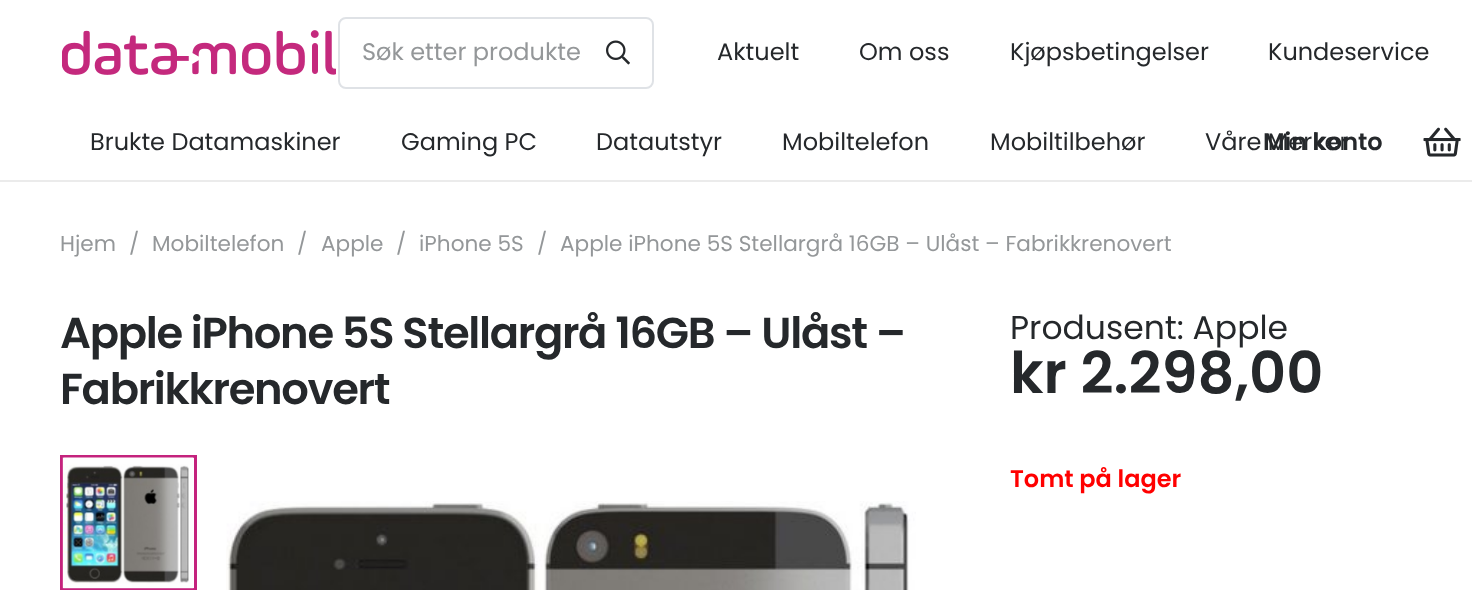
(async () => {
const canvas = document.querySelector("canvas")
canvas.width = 1472
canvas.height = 590
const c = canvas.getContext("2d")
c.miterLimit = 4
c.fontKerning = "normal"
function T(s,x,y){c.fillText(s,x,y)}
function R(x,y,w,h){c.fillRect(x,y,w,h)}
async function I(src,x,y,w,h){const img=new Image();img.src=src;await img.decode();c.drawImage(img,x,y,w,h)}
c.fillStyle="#fff"
R(0,0,1472,590)
await I("1.png",62,30,274,45)
c.beginPath()
c.roundRect(339,18,314,70,7)
c.strokeStyle="#dfe2e6"
c.lineWidth=2
c.stroke()
c.font="24px Poppins"
c.fillStyle="#949799"
T("Søk etter produkte",362,60)
await I("2.png",606,40,24,25)
c.fillStyle="#25282b"
T("Aktuelt",717,60)
T("Om oss",859,60)
T("Kjøpsbetingelser",1010,60)
T("Kundeservice",1268,60)
c.fillStyle="#ebebeb"
R(0,180,1472,2)
c.fillStyle="#25282b"
T("Brukte Datamaskiner",90,150)
T("Gaming PC",401,150)
T("Datautstyr",596,150)
T("Mobiltelefon",782,150)
T("Mobiltilbehør",990,150)
c.font="600 24px Poppins"
T("Min konto",1263,150)
c.font="24px Poppins"
T("Våre Merker",1205,150)
await I("3.png",1423,127,38,30)
c.font="21.6px Poppins"
c.fillStyle="#949799"
T("Hjem",60,251)
T("/",129,251)
T("Mobiltelefon",152,251)
T("/",297,251)
T("Apple",321,251)
T("/",396,251)
T("iPhone 5S",419,251)
T("/",537,251)
T("Apple iPhone 5S Stellargrå 16GB – Ulåst – Fabrikkrenovert",560,251)
c.letterSpacing="-1.3px"
c.font="600 43.25px Poppins"
c.fillStyle="#25282b"
T("Apple iPhone 5S Stellargrå 16GB – Ulåst –",60,348)
T("Fabrikkrenovert",60,404)
c.strokeStyle="#c4227d"
c.lineWidth=3
c.strokeRect(61.5,456.5,134,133)
await I("4.png",62,457,132,132)
await I("5.png",226,501,690,89)
c.letterSpacing="0px"
c.font="33px Poppins"
T("Produsent: Apple",1010,339)
c.font="600 57.5px Poppins"
T("kr 2.298,00",1010,393)
c.font="600 24px Poppins"
c.fillStyle="#f00"
T("Tomt på lager",1010,487)
})()
